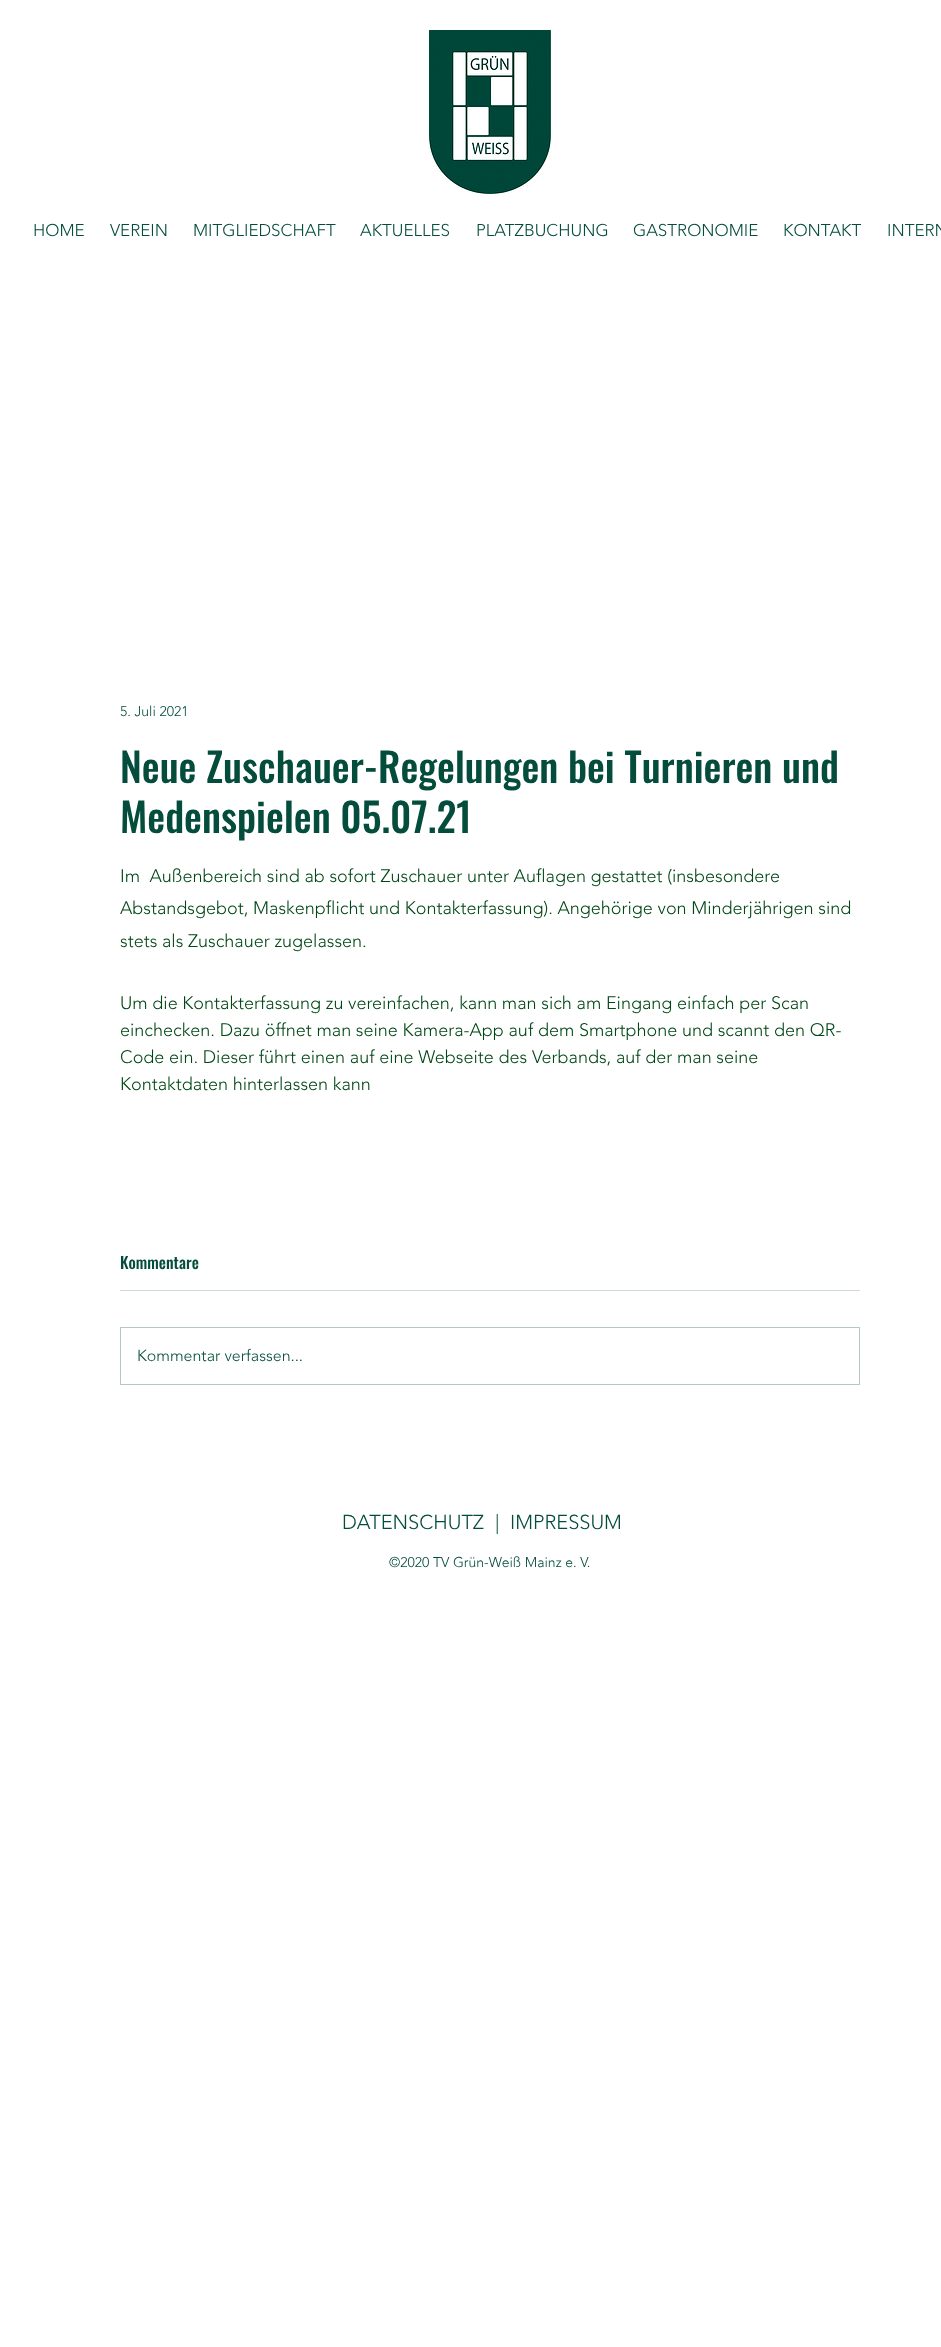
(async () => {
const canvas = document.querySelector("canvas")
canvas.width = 941
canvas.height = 2347
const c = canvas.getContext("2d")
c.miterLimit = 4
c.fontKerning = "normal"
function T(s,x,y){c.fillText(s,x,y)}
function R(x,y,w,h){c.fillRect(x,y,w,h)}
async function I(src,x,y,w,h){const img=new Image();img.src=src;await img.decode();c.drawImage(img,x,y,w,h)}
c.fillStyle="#fff"
R(0,0,941,2347)
await I("1.png",429,30,122,164)
c.font="300 17px 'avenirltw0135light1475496'"
c.fillStyle="#044c3c"
T("HOME",33,236)
T("VEREIN",110,236)
T("MITGLIEDSCHAFT",193,236)
T("AKTUELLES",360,236)
T("PLATZBUCHUNG",476,236)
T("GASTRONOMIE",633,236)
T("KONTAKT",783,236)
T("INTERN",887,236)
c.font="300 14px 'avenirltw0135light1475496'"
T("5. Juli 2021",120,716)
c.font="500 40px Oswald"
T("Neue Zuschauer-Regelungen bei Turnieren und",120,783)
T("Medenspielen 05.07.21",120,833)
c.font="300 18px 'avenirltw0135light1475496'"
c.fillStyle="#014715"
T("Im  Außenbereich sind ab sofort Zuschauer unter Auflagen gestattet (insbesondere",120,882)
T("Abstandsgebot, Maskenpflicht und Kontakterfassung). Angehörige von Minderjährigen sind",120,914)
T("stets als Zuschauer zugelassen.",120,947)
T("Um die Kontakterfassung zu vereinfachen, kann man sich am Eingang einfach per Scan",120,1009)
T("einchecken. Dazu öffnet man seine Kamera-App auf dem Smartphone und scannt den QR-",120,1036)
T("Code ein. Dieser führt einen auf eine Webseite des Verbands, auf der man seine",120,1063)
T("Kontaktdaten hinterlassen kann",120,1090)
c.font="500 16px Oswald"
c.fillStyle="#044c3c"
T("Kommentare",120,1269)
c.fillStyle="#cddbd8"
R(120,1290,740,1)
c.strokeStyle="#b4c9c5"
c.strokeRect(120.5,1327.5,739,57)
c.font="300 16px 'avenirltw0135light1475496'"
c.fillStyle="#044c3c"
T("Kommentar verfassen...",137,1361)
c.font="300 20px 'avenirltw0135light1475496'"
T("DATENSCHUTZ",342,1529)
T("|",495,1529)
T("IMPRESSUM",510,1529)
c.font="300 14px 'avenirltw0135light1475496'"
T("©2020 TV Grün-Weiß Mainz e. V.",389,1567)
})()
